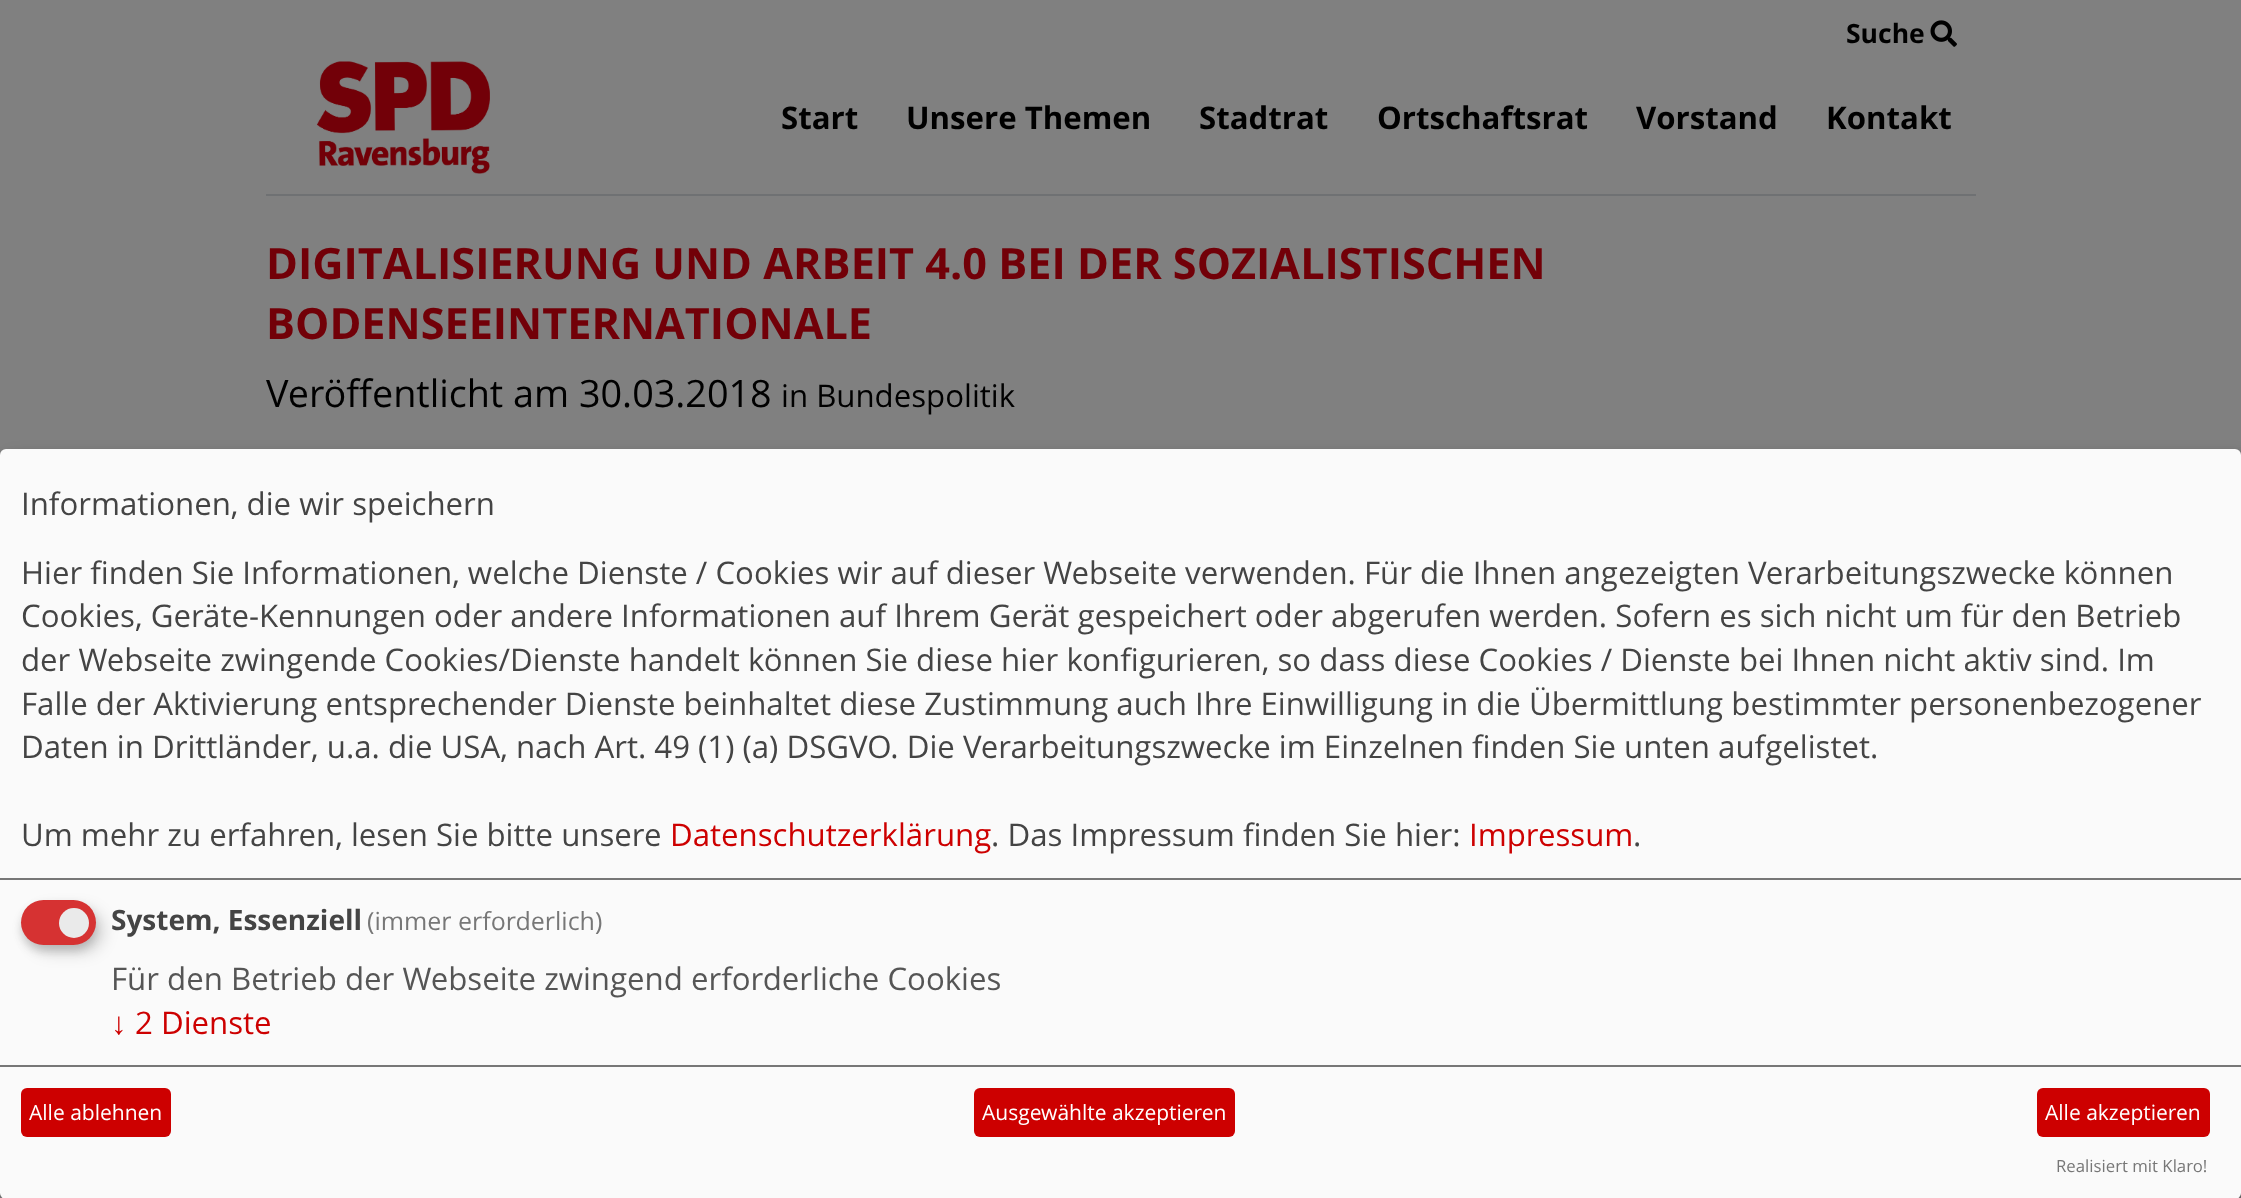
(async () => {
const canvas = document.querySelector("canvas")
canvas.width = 2241
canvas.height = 1198
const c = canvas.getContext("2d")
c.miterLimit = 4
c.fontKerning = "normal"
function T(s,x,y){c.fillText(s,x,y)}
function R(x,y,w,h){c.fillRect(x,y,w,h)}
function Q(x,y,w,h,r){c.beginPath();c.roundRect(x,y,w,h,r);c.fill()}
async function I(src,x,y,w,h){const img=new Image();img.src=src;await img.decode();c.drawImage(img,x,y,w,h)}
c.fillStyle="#808080"
R(0,0,2241,1198)
c.font="bold 26.5px Open Sans"
c.fillStyle="#000"
T("Suche",1846,43)
await I("1.png",1930,20,27,27)
c.fillStyle="#6f7173"
R(266,194,1710,2)
await I("2.png",316,61,174,113)
c.font="bold 31.2px Open Sans"
c.fillStyle="#000"
T("Start",781,129)
T("Unsere Themen",906,129)
T("Stadtrat",1199,129)
T("Ortschaftsrat",1377,129)
T("Vorstand",1636,129)
T("Kontakt",1826,129)
c.font="bold 43.2px Open Sans"
c.fillStyle="#720008"
T("DIGITALISIERUNG UND ARBEIT 4.0 BEI DER SOZIALISTISCHEN",266,279)
T("BODENSEEINTERNATIONALE",266,339)
c.font="37.75px Open Sans"
c.fillStyle="#000"
T("Veröffentlicht am 30.03.2018",266,407)
c.font="31.2px Open Sans"
T("in Bundespolitik",781,407)
c.fillStyle="#00000030"
c.filter="blur(7.5px)"
c.beginPath()
c.roundRect(8,456,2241,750,6)
c.fill()
c.filter="none"
c.fillStyle="#00000033"
c.filter="blur(4.5px)"
c.beginPath()
c.roundRect(0,455,2241,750,6)
c.fill()
c.filter="none"
c.fillStyle="#fafafa"
Q(0,449,2241,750,6)
c.fillStyle="#777"
R(0,878,2241,2)
c.fillStyle="#444"
T("Informationen, die wir speichern",21,515)
T("Hier finden Sie Informationen, welche Dienste / Cookies wir auf dieser Webseite verwenden. Für die Ihnen angezeigten Verarbeitungszwecke können",21,584)
T("Cookies, Geräte-Kennungen oder andere Informationen auf Ihrem Gerät gespeichert oder abgerufen werden. Sofern es sich nicht um für den Betrieb",21,627)
T("der Webseite zwingende Cookies/Dienste handelt können Sie diese hier konfigurieren, so dass diese Cookies / Dienste bei Ihnen nicht aktiv sind. Im",21,671)
T("Falle der Aktivierung entsprechender Dienste beinhaltet diese Zustimmung auch Ihre Einwilligung in die Übermittlung bestimmter personenbezogener",21,715)
T("Daten in Drittländer, u.a. die USA, nach Art. 49 (1) (a) DSGVO. Die Verarbeitungszwecke im Einzelnen finden Sie unten aufgelistet.",21,758)
T("Um mehr zu erfahren, lesen Sie bitte unsere",21,846)
c.fillStyle="#cd0000"
T("Datenschutzerklärung",670,846)
c.fillStyle="#444"
T(". Das Impressum finden Sie hier:",991,846)
c.fillStyle="#cd0000"
T("Impressum",1469,846)
c.fillStyle="#444"
T(".",1633,846)
c.fillStyle="#00000026"
c.filter="blur(7.5px)"
c.beginPath()
c.roundRect(29,908,75,45,22.5)
c.fill()
c.filter="none"
c.fillStyle="#32323233"
c.filter="blur(4.5px)"
c.beginPath()
c.roundRect(21,906,75,45,22.5)
c.fill()
c.filter="none"
c.fillStyle="#d63232"
Q(21,900,75,45,22.5)
c.fillStyle="#eaeaea"
c.beginPath()
c.arc(74,923,15,0,7)
c.fill()
c.font="bold 28px Open Sans"
c.fillStyle="#444"
T("System, Essenziell",111,930)
c.font="25px Open Sans"
c.fillStyle="#777"
T("(immer erforderlich)",367,930)
c.font="31.2px Open Sans"
c.fillStyle="#555"
T("Für den Betrieb der Webseite zwingend erforderliche Cookies",111,990)
c.font="31.2px Liberation Sans"
c.fillStyle="#cd0000"
T("↓",111,1034)
c.font="31.2px Open Sans"
T("2 Dienste",135,1034)
c.fillStyle="#777"
R(0,1065,2241,2)
c.fillStyle="#cd0000"
Q(21,1088,150,49,6)
c.font="21px Open Sans"
c.fillStyle="#fff"
T("Alle ablehnen",29,1120)
c.fillStyle="#cd0000"
Q(974,1088,261,49,6)
c.fillStyle="#fff"
T("Ausgewählte akzeptieren",982,1120)
c.fillStyle="#cd0000"
Q(2037,1088,173,49,6)
c.fillStyle="#fff"
T("Alle akzeptieren",2045,1120)
c.font="16.75px Open Sans"
c.fillStyle="#777"
T("Realisiert mit Klaro!",2056,1172)
})()
